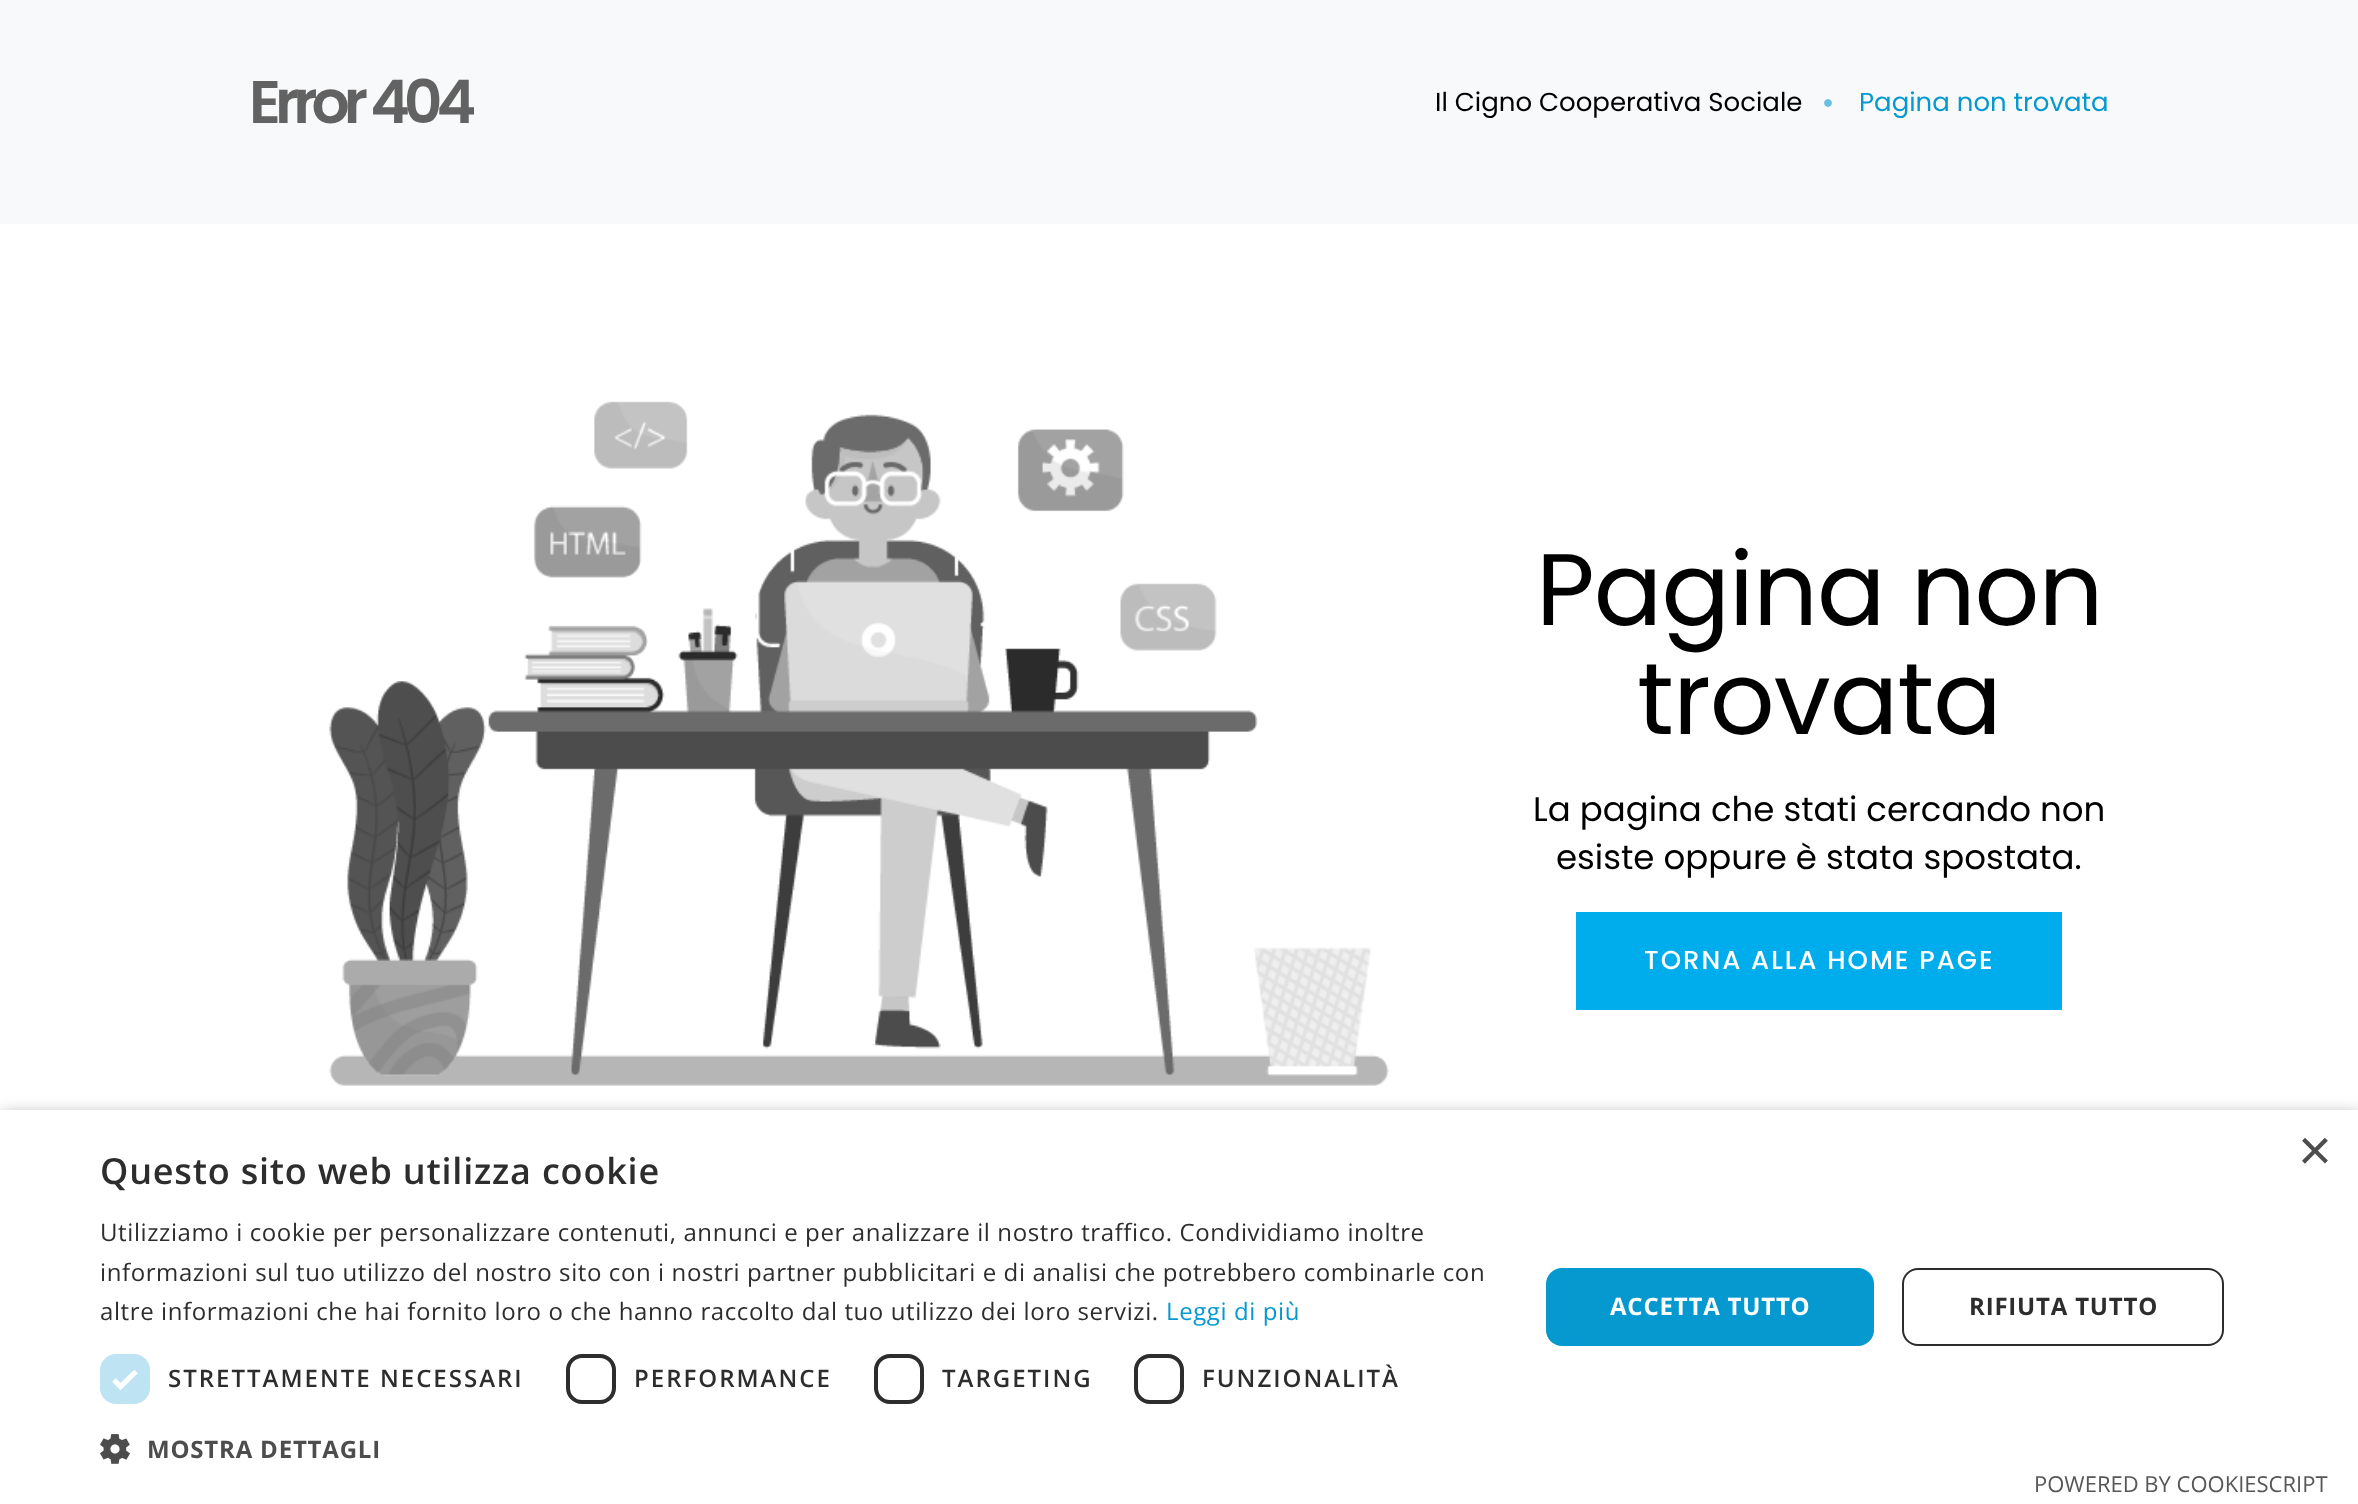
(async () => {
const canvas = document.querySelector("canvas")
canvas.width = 2358
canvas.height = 1504
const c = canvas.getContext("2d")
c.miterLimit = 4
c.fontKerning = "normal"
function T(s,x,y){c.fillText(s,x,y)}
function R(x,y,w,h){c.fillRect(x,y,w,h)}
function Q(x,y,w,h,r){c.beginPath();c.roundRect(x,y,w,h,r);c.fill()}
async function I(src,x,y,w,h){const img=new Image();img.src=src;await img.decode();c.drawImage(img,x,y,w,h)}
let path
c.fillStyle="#fff"
R(0,0,2358,1504)
c.fillStyle="#f8f9fa"
R(0,0,2358,224)
c.letterSpacing="-6px"
c.font="600 60px Poppins"
c.fillStyle="#626262"
T("Error 404",249,123)
c.letterSpacing="0px"
c.font="26px Poppins"
c.fillStyle="#000"
T("Il Cigno Cooperativa Sociale",1435,111)
await I("1.png",1824,99,8,8)
c.fillStyle="#0599cf"
T("Pagina non trovata",1859,111)
await I("2.png",329,401,1060,685)
c.letterSpacing="-1px"
c.font="101.5px Poppins"
c.fillStyle="#000"
T("Pagina non",1536,625)
T("trovata",1637,734)
c.letterSpacing="0px"
c.font="34px Poppins"
T("La pagina che stati cercando non",1533,821)
T("esiste oppure è stata spostata.",1556,869)
c.fillStyle="#00adec"
R(1576,912,486,98)
c.letterSpacing="2px"
c.font="500 26px Poppins"
c.fillStyle="#fff"
T("TORNA ALLA HOME PAGE",1644,969)
c.fillStyle="#00000059"
c.filter="blur(8px)"
c.beginPath()
c.rect(2,1114,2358,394)
c.fill()
c.filter="none"
c.fillStyle="#fff"
R(0,1110,2358,394)
c.letterSpacing="0px"
c.font="58px Liberation Sans"
c.fillStyle="#4d4d4d"
T("×",2298,1170)
c.letterSpacing="0.8px"
c.font="600 36px Open Sans"
c.fillStyle="#2d2d2d"
T("Questo sito web utilizza cookie",100,1184)
c.letterSpacing="0.6px"
c.font="24px Open Sans"
T("Utilizziamo i cookie per personalizzare contenuti, annunci e per analizzare il nostro traffico. Condividiamo inoltre",100,1241)
T("informazioni sul tuo utilizzo del nostro sito con i nostri partner pubblicitari e di analisi che potrebbero combinarle con",100,1281)
T("altre informazioni che hai fornito loro o che hanno raccolto dal tuo utilizzo dei loro servizi.",100,1320)
c.fillStyle="#0599cf"
T("Leggi di più",1166,1320)
c.fillStyle="#bee4f3"
Q(100,1354,50,50,16)
path = new Path2D("M114 1380l6.5 6.5l15.5-15")
c.strokeStyle="#fff"
c.lineWidth=5.2
c.stroke(path)
c.letterSpacing="2px"
c.font="600 24px Open Sans"
c.fillStyle="#2d2d2d"
T("STRETTAMENTE NECESSARI",168,1387)
c.beginPath()
c.roundRect(568,1356,46,46,14)
c.strokeStyle="#2d2d2d"
c.lineWidth=4
c.stroke()
T("PERFORMANCE",634,1387)
c.beginPath()
c.roundRect(876,1356,46,46,14)
c.stroke()
T("TARGETING",942,1387)
c.beginPath()
c.roundRect(1136,1356,46,46,14)
c.stroke()
T("FUNZIONALITÀ",1202,1387)
await I("3.png",100,1434,30,30)
c.letterSpacing="0.8px"
c.font="bold 24px Open Sans"
c.fillStyle="#4d4d4d"
T("MOSTRA DETTAGLI",147,1458)
c.fillStyle="#0599cf"
Q(1546,1268,328,78,16)
c.fillStyle="#fff"
T("ACCETTA TUTTO",1610,1315)
c.beginPath()
c.roundRect(1903,1269,320,76,15)
c.lineWidth=2
c.stroke()
c.fillStyle="#2d2d2d"
T("RIFIUTA TUTTO",1969,1315)
c.letterSpacing="0px"
c.font="22px Open Sans"
c.fillStyle="#575757"
T("POWERED BY COOKIESCRIPT",2034,1492)
})()
